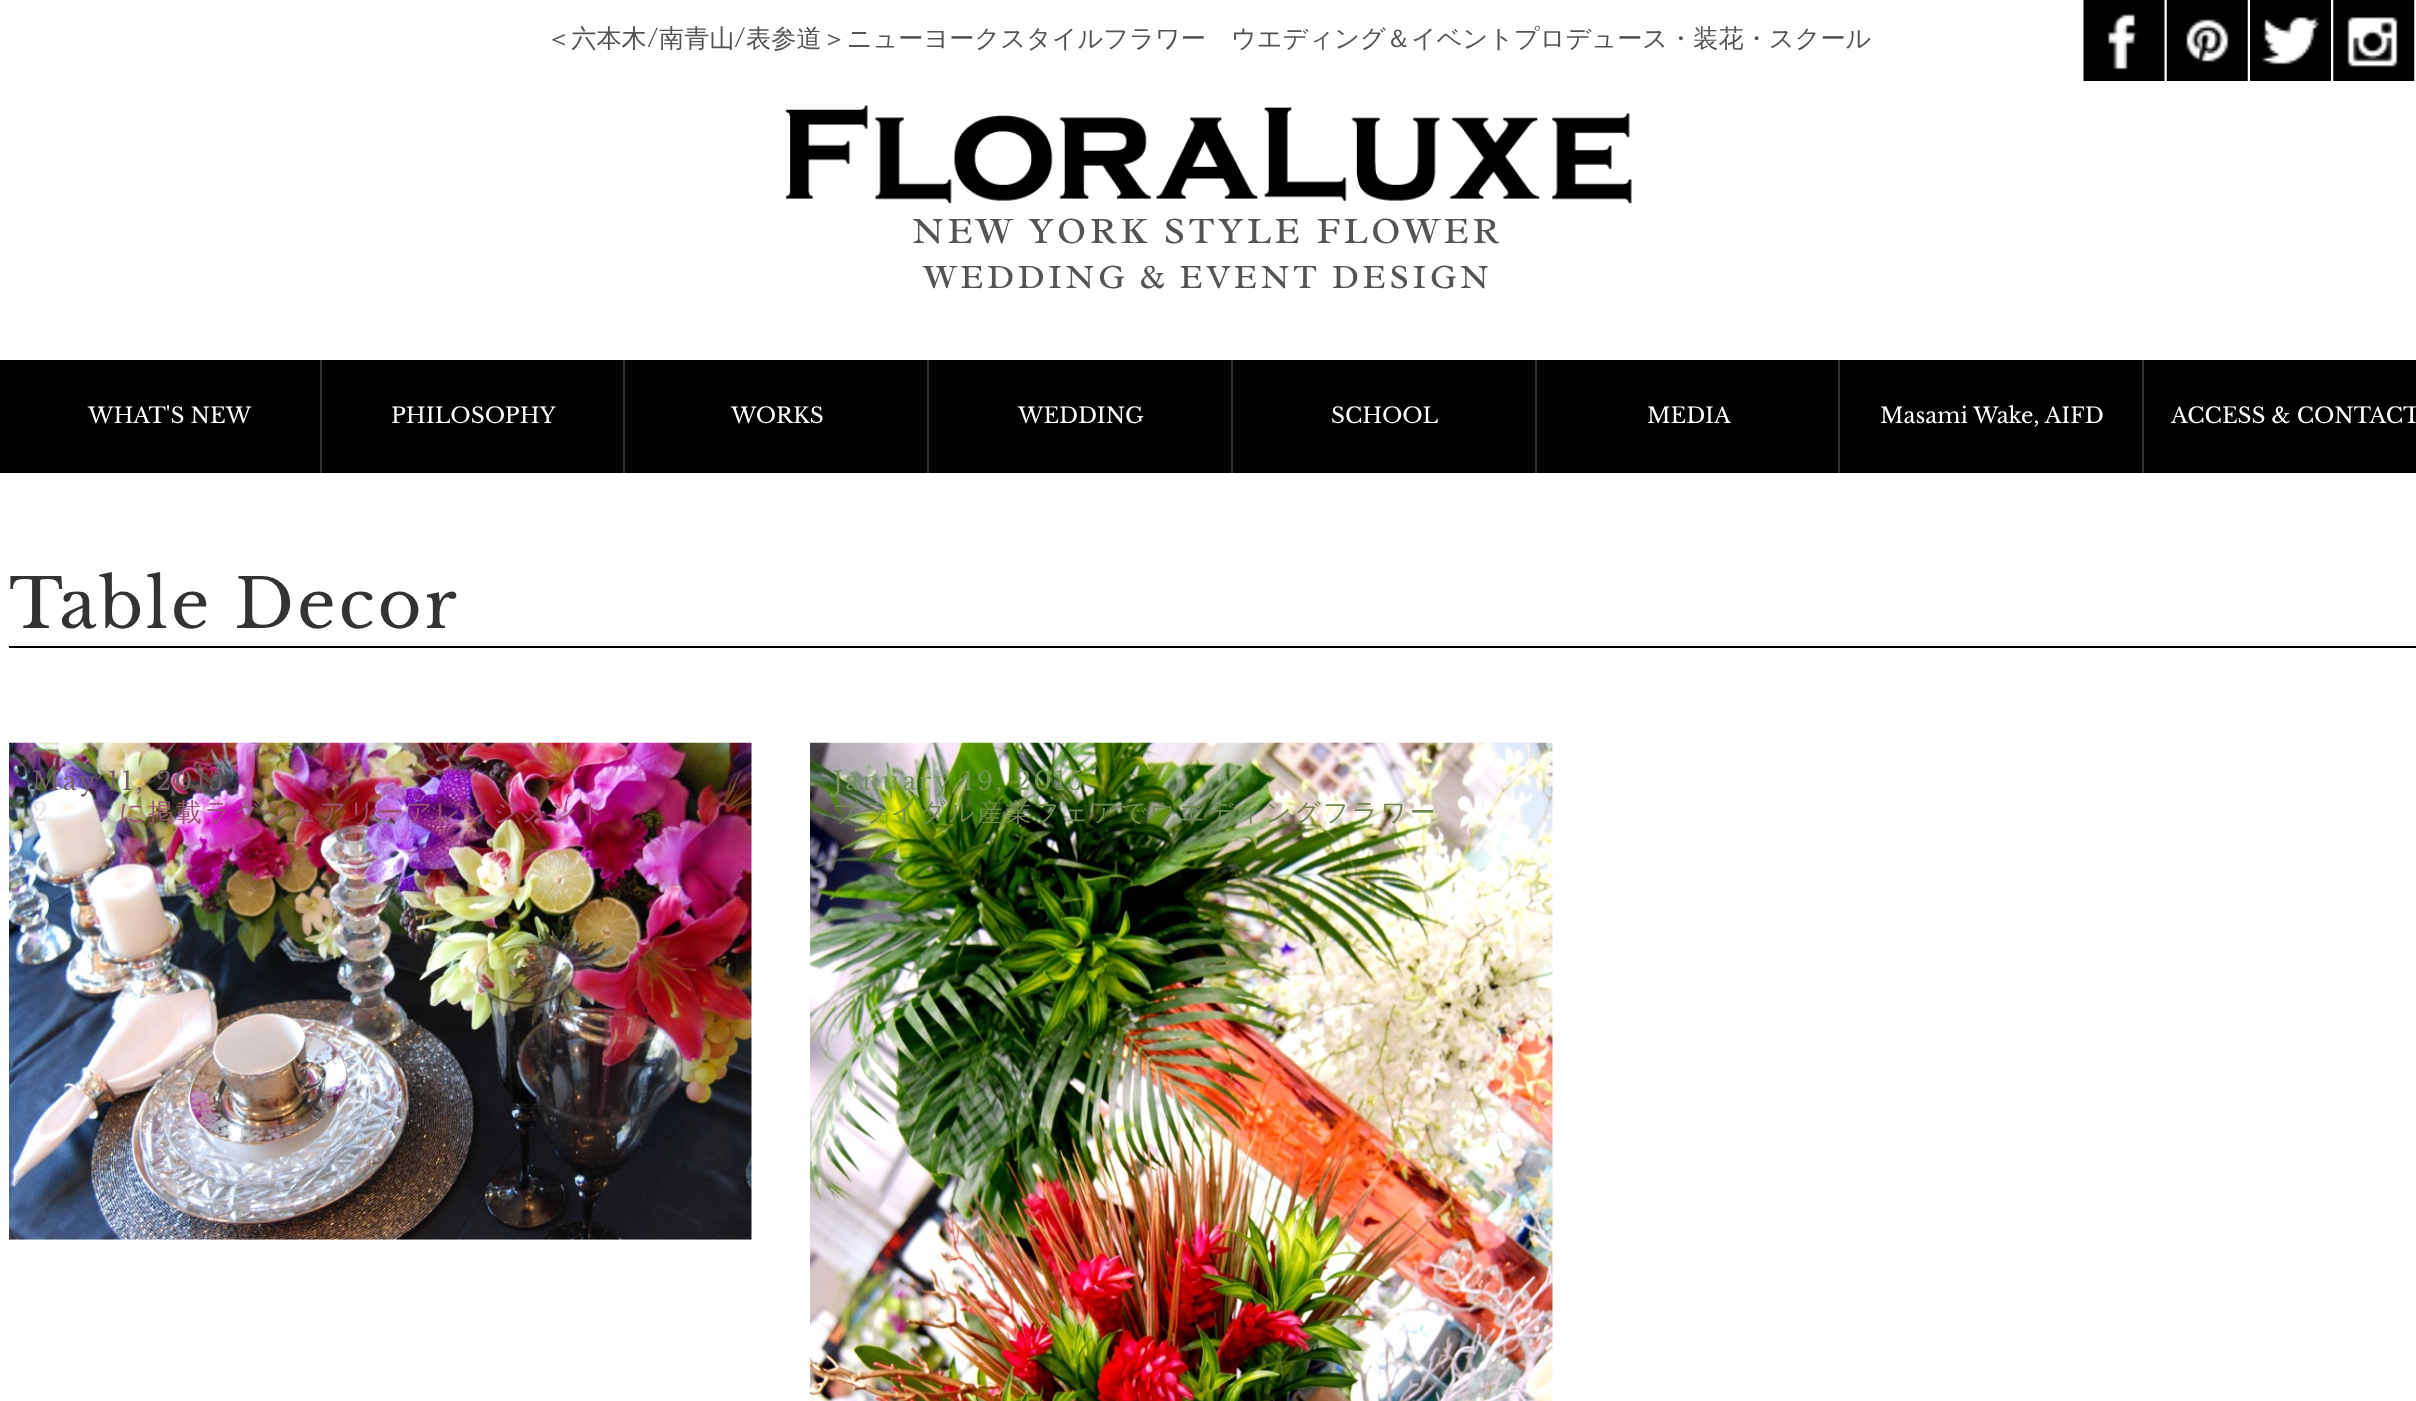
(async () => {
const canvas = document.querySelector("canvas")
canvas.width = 2416
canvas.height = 1401
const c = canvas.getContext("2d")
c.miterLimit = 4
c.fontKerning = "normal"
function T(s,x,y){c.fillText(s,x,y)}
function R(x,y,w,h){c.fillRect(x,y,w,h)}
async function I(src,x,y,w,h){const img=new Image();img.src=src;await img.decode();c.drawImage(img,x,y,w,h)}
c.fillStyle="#fff"
R(0,0,2416,1401)
c.font="500 25.2px WenQuanYi Zen Hei"
c.fillStyle="#545454"
T("＜六本木",546,47)
c.font="25.2px Libre Baskerville"
T("/",647,47)
c.font="500 25.2px WenQuanYi Zen Hei"
T("南青山",659,47)
c.font="25.2px Libre Baskerville"
T("/",734,47)
c.font="500 25.2px WenQuanYi Zen Hei"
T("表参道＞ニューヨークスタイルフラワー　ウエディング＆イベントプロデュース・装花・スクール",746,47)
await I("1.png",2083,0,82,81)
await I("2.png",2166,0,82,81)
await I("3.png",2250,0,81,81)
await I("4.png",2333,0,82,81)
await I("5.png",785,105,847,99)
c.letterSpacing="3.75px"
c.font="37.75px Radley"
T("NEW YORK STYLE FLOWER",912,243)
c.letterSpacing="3.5px"
c.font="34.6px Radley"
T("WEDDING & EVENT DESIGN",924,288)
c.fillStyle="#000"
R(0,360,2416,113)
c.fillStyle="#333"
R(320,360,2,113)
c.letterSpacing="0px"
c.font="21.6px Libre Baskerville"
c.fillStyle="#fff"
T("WHAT'S NEW",88,423)
c.fillStyle="#333"
R(623,360,2,113)
c.fillStyle="#fff"
T("PHILOSOPHY",391,423)
c.fillStyle="#333"
R(927,360,2,113)
c.fillStyle="#fff"
T("WORKS",731,423)
c.fillStyle="#333"
R(1231,360,2,113)
c.fillStyle="#fff"
T("WEDDING",1018,423)
c.fillStyle="#333"
R(1535,360,2,113)
c.fillStyle="#fff"
T("SCHOOL",1331,423)
c.fillStyle="#333"
R(1838,360,2,113)
c.fillStyle="#fff"
T("MEDIA",1647,423)
c.fillStyle="#333"
R(2142,360,2,113)
c.fillStyle="#fff"
T("Masami Wake, AIFD",1880,423)
T("ACCESS & CONTACT",2171,423)
c.fillStyle="#000"
R(9,646,2407,2)
c.letterSpacing="2.8px"
c.font="67.5px Libre Baskerville"
c.fillStyle="#333"
T("Table Decor",9,628)
await I("6.png",9,742,743,498)
c.font="25.5px Libre Baskerville"
c.fillStyle="#726069"
T("May 11, 2015",32,790)
c.fillStyle="#e7e3e5"
T("2",32,821)
c.font="500 25.5px WenQuanYi Zen Hei"
c.fillStyle="#9e5474"
T("に掲載ラグジュアリーアレンジメント",119,821)
await I("7.png",810,742,743,659)
c.font="25.5px Libre Baskerville"
c.fillStyle="#769356"
T("January 19, 2015",833,790)
c.font="500 25.5px WenQuanYi Zen Hei"
c.fillStyle="#718851"
T("ブライダル産業フェアでウエディングフラワー",833,821)
})()
